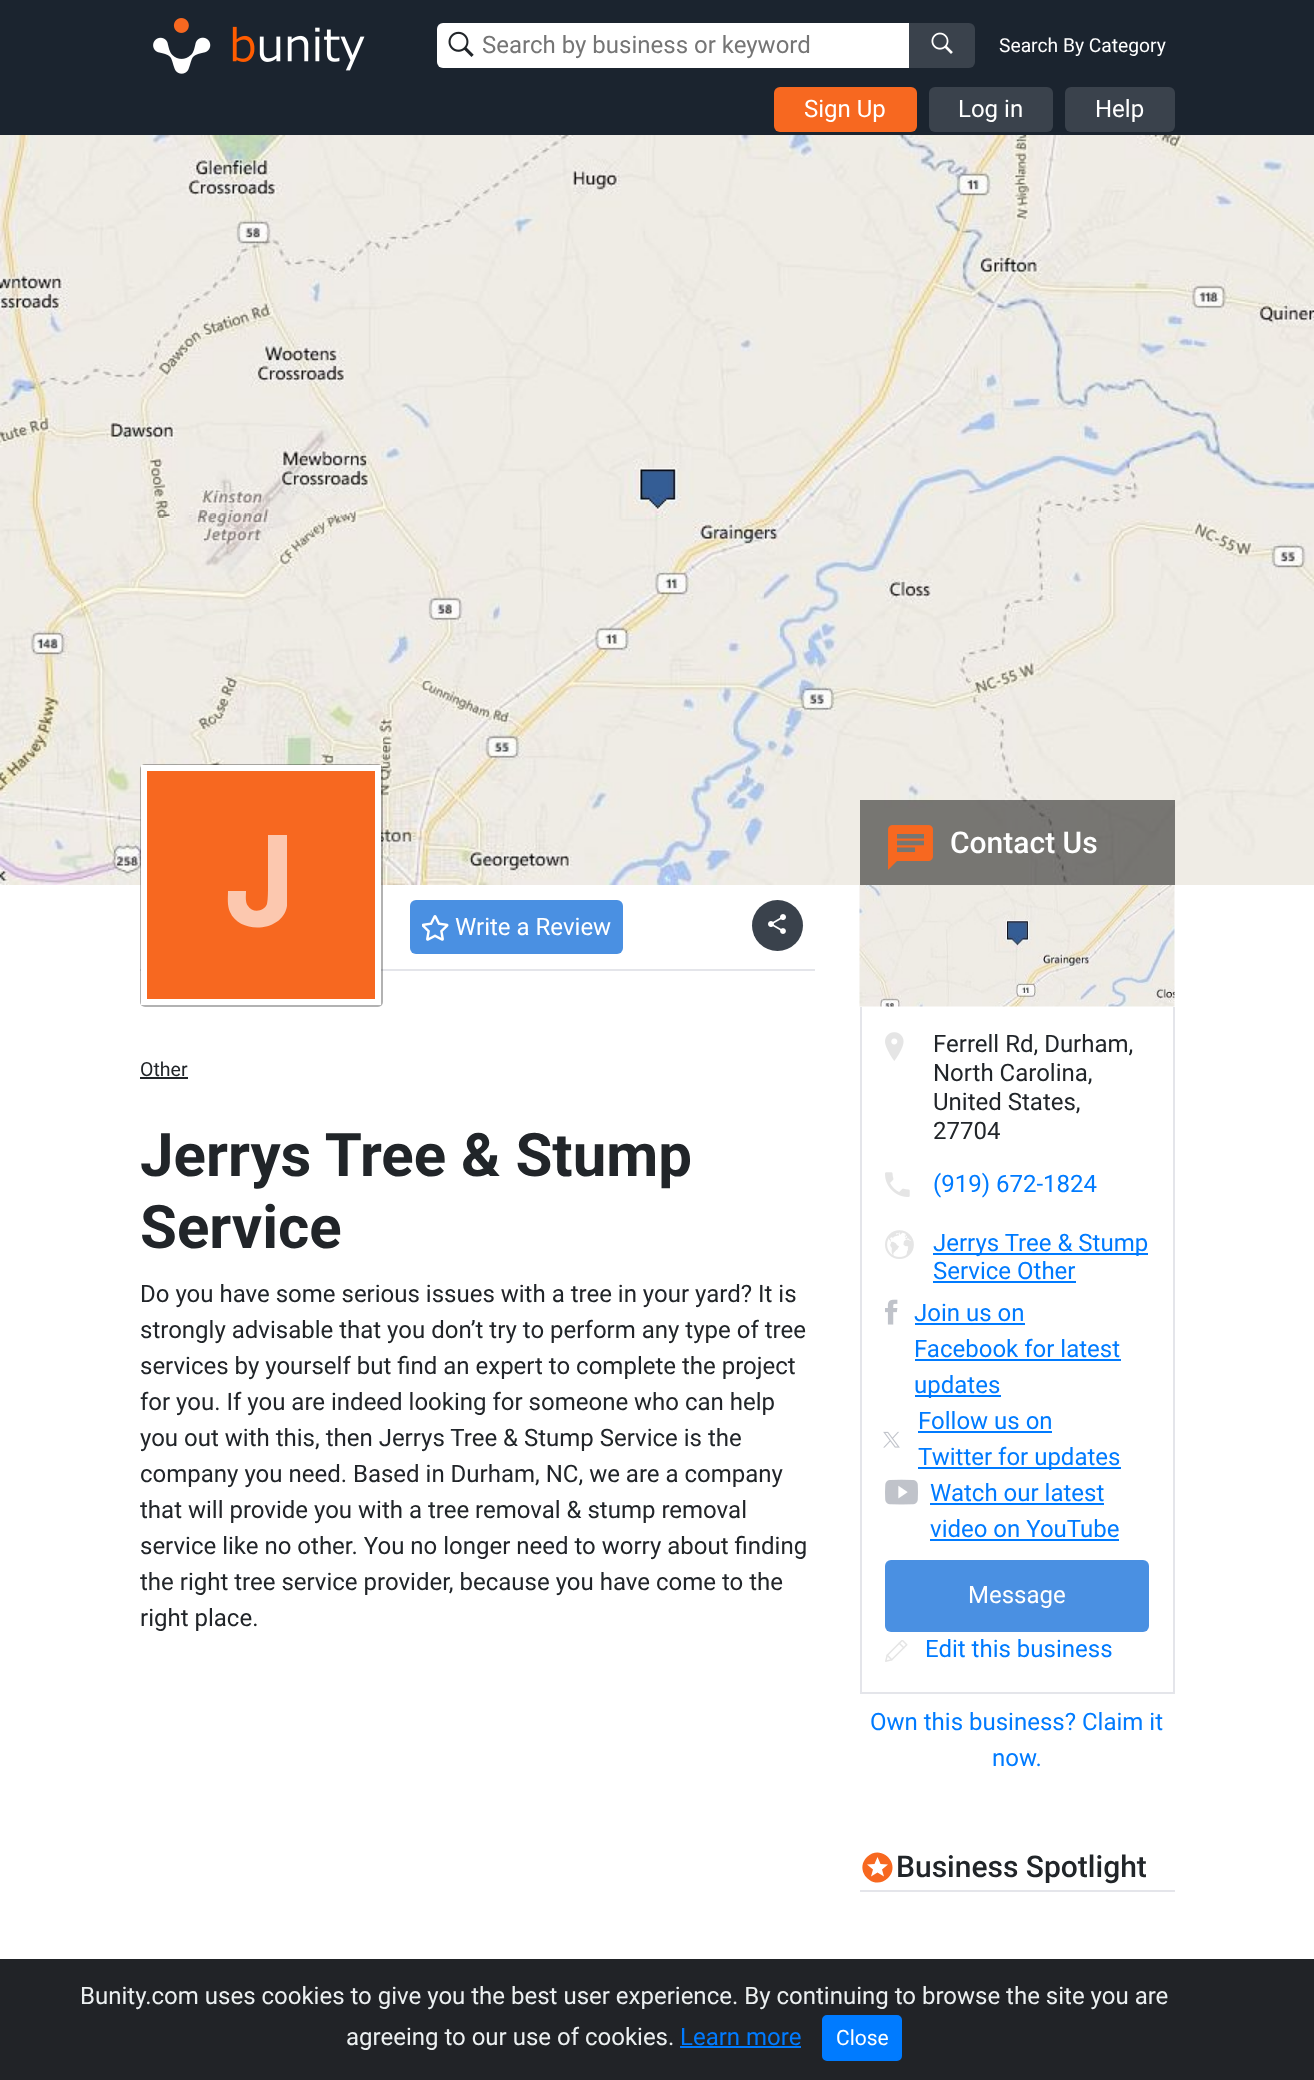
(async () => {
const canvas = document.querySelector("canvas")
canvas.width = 1314
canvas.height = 2080
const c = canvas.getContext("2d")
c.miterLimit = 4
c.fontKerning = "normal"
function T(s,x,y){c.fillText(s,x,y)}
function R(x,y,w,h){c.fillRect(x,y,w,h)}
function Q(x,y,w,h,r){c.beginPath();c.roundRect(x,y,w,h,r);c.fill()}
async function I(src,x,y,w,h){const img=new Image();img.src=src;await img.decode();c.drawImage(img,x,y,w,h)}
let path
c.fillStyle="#fff"
R(0,0,1314,2080)
c.fillStyle="#1b242f"
R(0,0,1314,135)
await I("1.png",153,18,212,56)
c.fillStyle="#fff"
c.beginPath()
c.roundRect(437,23,472,45,[6,0,0,6])
c.fill()
await I("2.png",448,31,26,26)
c.font="24px Roboto"
c.fillStyle="#757575"
T("Search by business or keyword",482,53)
c.fillStyle="#3a424c"
c.beginPath()
c.roundRect(909,23,66,45,[0,6,6,0])
c.fill()
await I("3.png",931,32,22,22)
c.font="19.25px Roboto"
c.fillStyle="#fff"
T("Search By Category",999,52)
c.fillStyle="#f76820"
Q(774,87,143,45,6)
c.font="24px Roboto"
c.fillStyle="#fff"
T("Sign Up",804,117)
c.fillStyle="#3a424c"
Q(929,87,124,45,6)
c.fillStyle="#fff"
T("Log in",958,117)
c.fillStyle="#3a424c"
Q(1065,87,110,45,6)
c.fillStyle="#fff"
T("Help",1095,117)
await I("4.png",0,135,1314,750)
c.fillStyle="#e4e5ea"
R(140,969,675,2)
c.fillStyle="#0000004d"
Q(140,764,243,243,5)
c.beginPath()
c.rect(144,768,234,234)
c.strokeStyle="#fff"
c.lineWidth=6
c.stroke()
c.fillStyle="#f76820"
R(147,771,228,228)
c.fillStyle="#fcc8af"
path = new Path2D("M287 906c-4 26-47 29-57 6c-3-7-2-14-2-21h18c0 5-1 11 2 15c4 7 16 6 19-2c1-5 1-13 1-18v-51h19v62z")
c.fill(path)
c.fillStyle="#4a90e2"
Q(410,900,213,54,6)
await I("5.png",422,915,27,26)
c.fillStyle="#fff"
T("Write a Review",455,935)
c.fillStyle="#3a424c"
c.beginPath()
c.arc(777.5,925.5,25.5,0,7)
c.fill()
await I("6.png",768,914,18,20)
c.font="19.5px Roboto"
c.fillStyle="#212529"
T("Other",140,1076)
R(140,1077,48,2)
c.font="bold 60px Roboto"
T("Jerrys Tree & Stump",140,1176)
T("Service",140,1248)
c.font="24px Roboto"
T("Do you have some serious issues with a tree in your yard? It is",140,1302)
T("strongly advisable that you don’t try to perform any type of tree",140,1338)
T("services by yourself but find an expert to complete the project",140,1374)
T("for you. If you are indeed looking for someone who can help",140,1410)
T("you out with this, then Jerrys Tree & Stump Service is the",140,1446)
T("company you need. Based in Durham, NC, we are a company",140,1482)
T("that will provide you with a tree removal & stump removal",140,1518)
T("service like no other. You no longer need to worry about finding",140,1554)
T("the right tree service provider, because you have come to the",140,1590)
T("right place.",140,1626)
c.fillStyle="#00000080"
R(860,800,315,85)
await I("7.png",888,825,45,45)
c.font="500 30px Roboto"
c.fillStyle="#fff"
T("Contact Us",950,853)
await I("8.png",859,885,316,122)
c.fillStyle="#e4e5ea"
R(1173,1007,2,687)
R(860,1692,315,2)
R(860,1007,2,687)
await I("9.png",885,1032,19,29)
c.font="24px Roboto"
c.fillStyle="#212529"
T("Ferrell Rd, Durham,",933,1052)
T("North Carolina,",933,1081)
T("United States,",933,1110)
T("27704",933,1139)
await I("10.png",885,1172,25,25)
c.fillStyle="#007bff"
T("(919) 672-1824",933,1192)
await I("11.png",885,1230,29,29)
R(933,1253,215,2)
T("Jerrys Tree & Stump",933,1251)
T("Service Other",933,1279)
R(933,1281,143,2)
await I("12.png",885,1299,13,26)
T("Join us on",914,1321)
R(915,1323,110,2)
T("Facebook for latest",914,1357)
R(915,1359,206,2)
R(915,1395,86,2)
T("updates",914,1393)
await I("13.png",883,1431,17,17)
T("Follow us on",918,1429)
R(918,1431,134,2)
R(918,1467,203,2)
T("Twitter for updates",918,1465)
await I("14.png",885,1479,33,26)
T("Watch our latest",930,1501)
R(930,1503,174,2)
T("video on YouTube",930,1537)
R(930,1539,189,2)
c.fillStyle="#4a90e2"
Q(885,1560,264,72,6)
c.fillStyle="#fff"
T("Message",968,1603)
await I("15.png",885,1640,23,22)
c.fillStyle="#007bff"
T("Edit this business",925,1657)
T("Own this business? Claim it",870,1730)
T("now.",992,1766)
c.fillStyle="#e4e5ea"
R(860,1890,315,2)
c.fillStyle="#f76820"
path = new Path2D("M884 1876.5l-2-7l6-5l-7.5-.5l-3-7l-3 7l-7.5 .5l6 5l-2 7l6.5-4zm-17-19.5c14-14 35 7 21 21c-14 14-35-7-21-21z")
c.fill(path)
c.font="500 30px Roboto"
c.fillStyle="#212529"
T("Business Spotlight",896,1877)
c.fillStyle="#212327"
R(0,1959,1314,121)
c.font="24px Roboto"
c.fillStyle="#ecf0f1"
T("Bunity.com uses cookies to give you the best user experience. By continuing to browse the site you are",80,2004)
T("agreeing to our use of cookies.",346,2045)
c.fillStyle="#007bff"
T("Learn more",680,2045)
R(680,2046,121,2)
c.beginPath()
c.roundRect(823,2016,78,44,4)
c.fill()
c.strokeStyle="#007bff"
c.lineWidth=2
c.stroke()
c.font="21px Roboto"
c.fillStyle="#fff"
T("Close",836,2045)
})()
